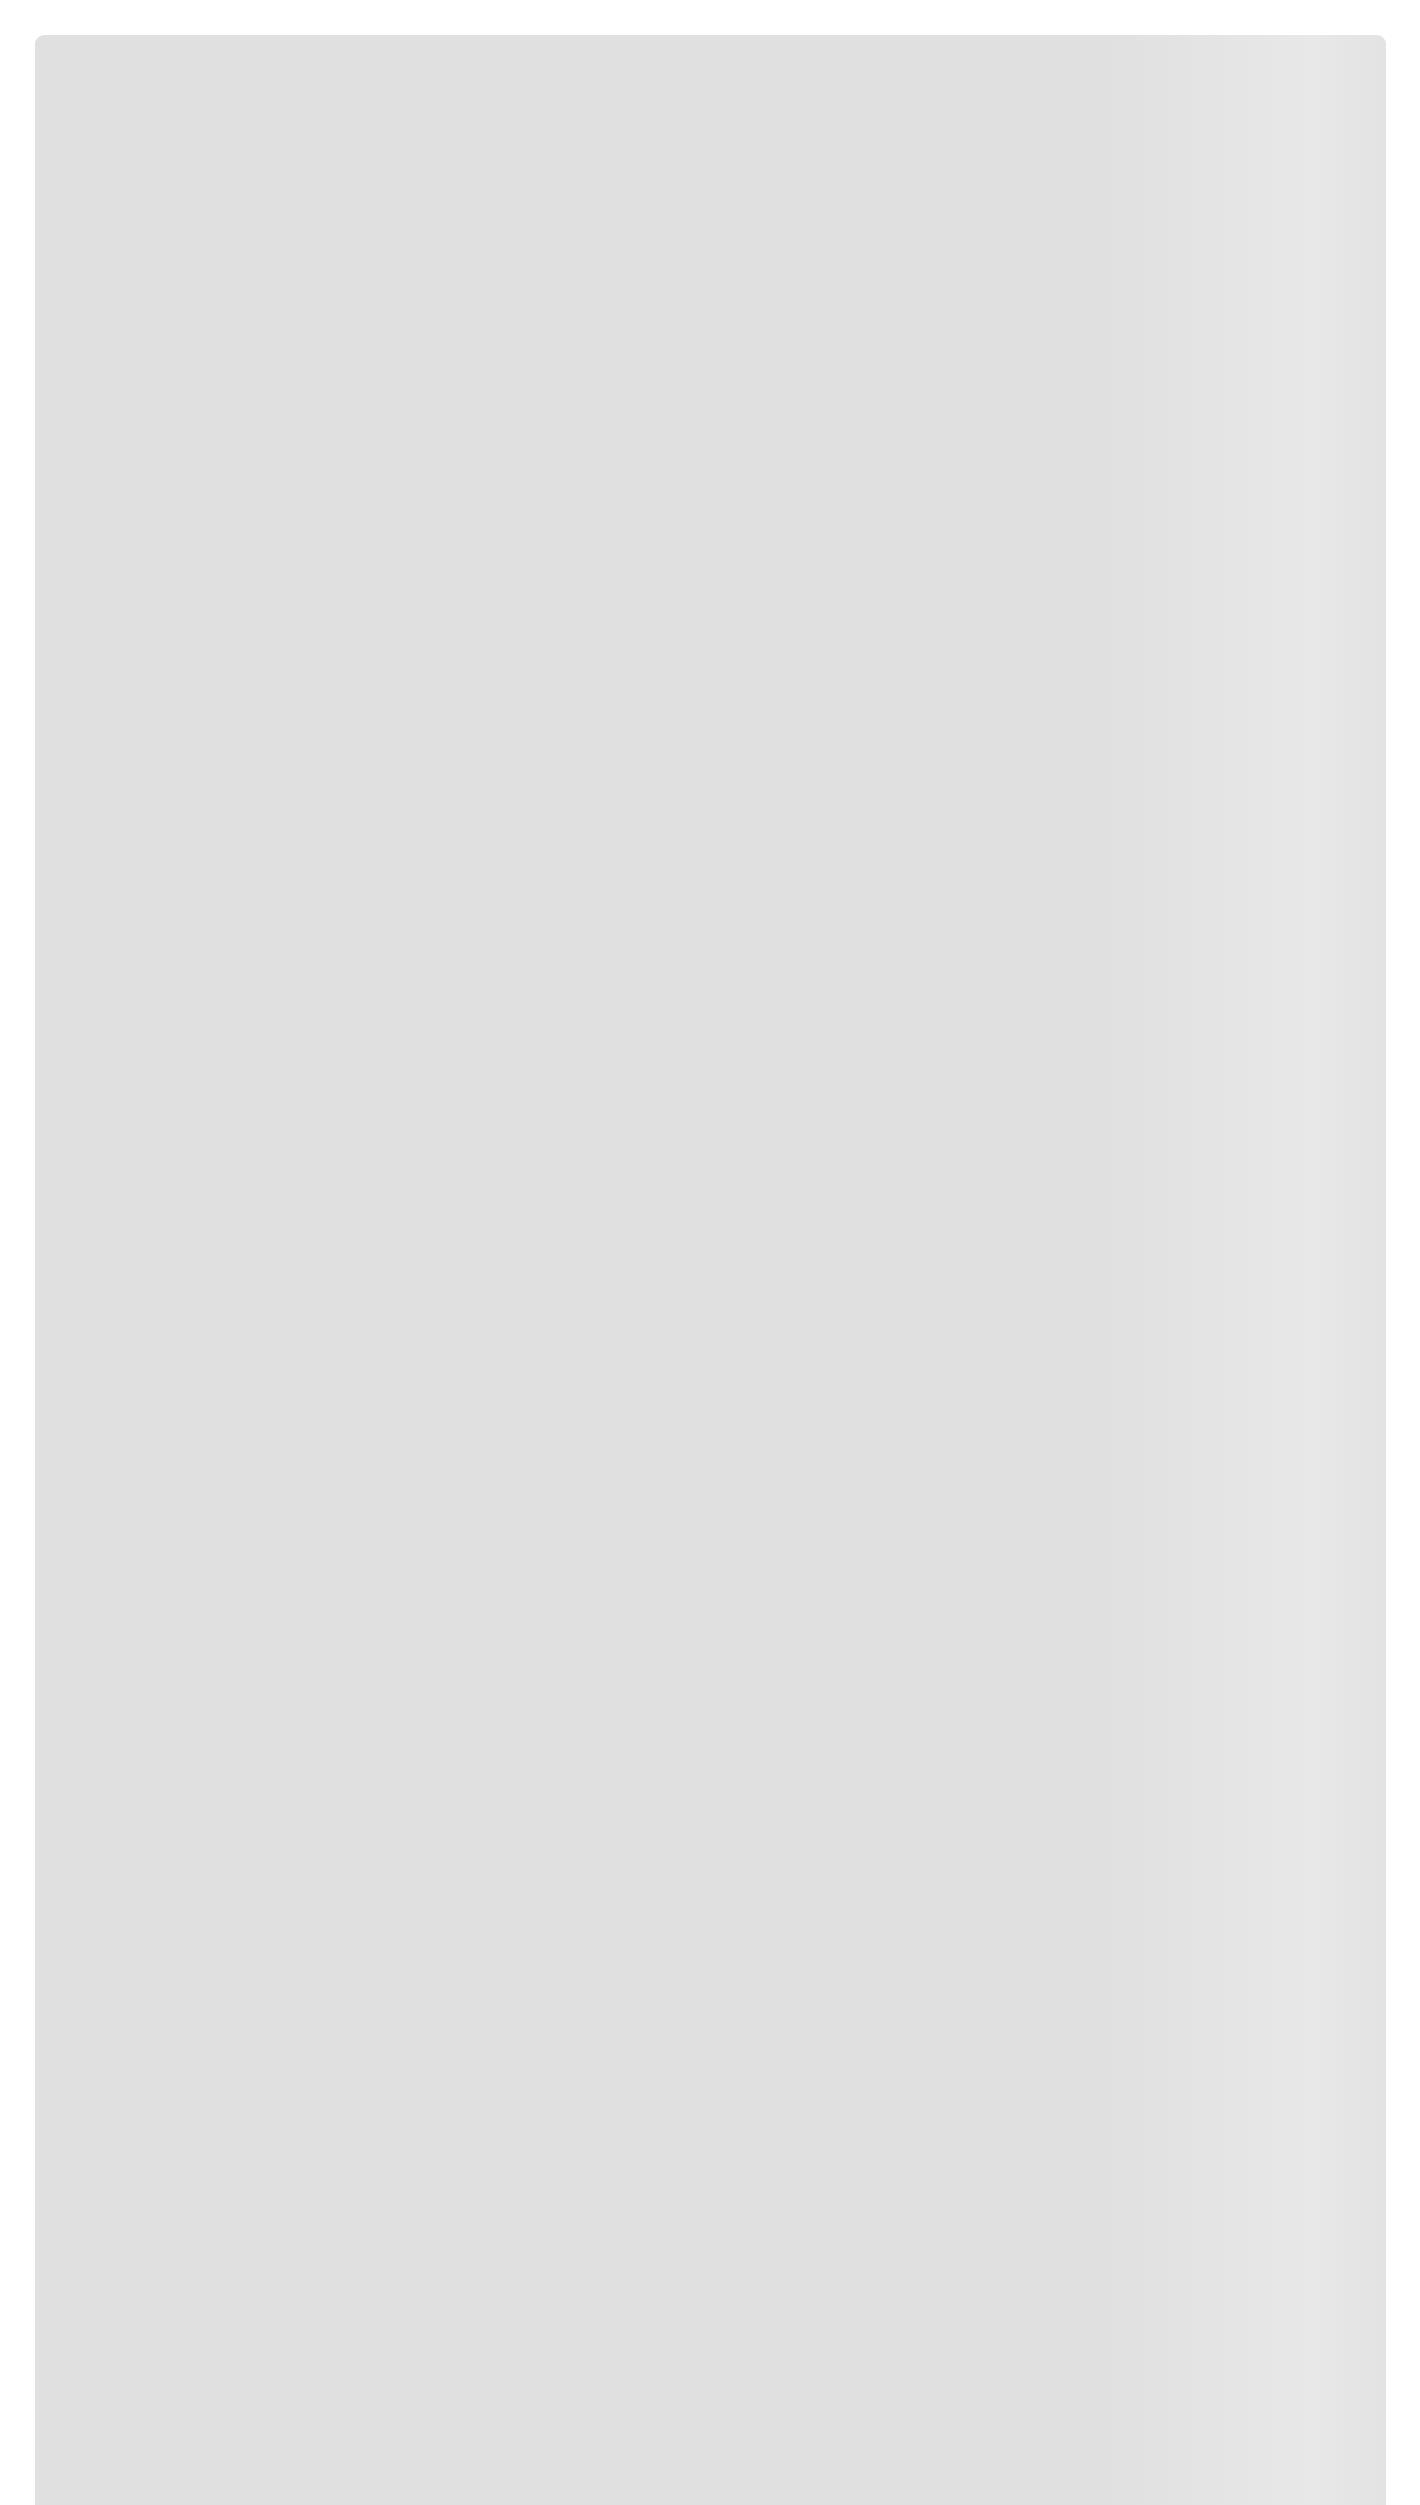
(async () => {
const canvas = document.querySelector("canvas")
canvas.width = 1420
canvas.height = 2505
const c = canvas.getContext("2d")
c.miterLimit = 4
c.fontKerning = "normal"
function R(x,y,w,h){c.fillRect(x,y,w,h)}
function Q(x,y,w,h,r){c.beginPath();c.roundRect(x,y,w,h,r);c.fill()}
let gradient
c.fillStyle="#fff"
R(0,0,1420,2505)
gradient = c.createLinearGradient(35,1288,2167,1288)
gradient.addColorStop(0,"#e0e0e0")
gradient.addColorStop(.5,"#e0e0e0")
gradient.addColorStop(.6,"#e8e8e8")
gradient.addColorStop(.65,"#e0e0e0")
gradient.addColorStop(1,"#e0e0e0")
c.fillStyle = gradient
Q(35,35,1351,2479,9)
})()
